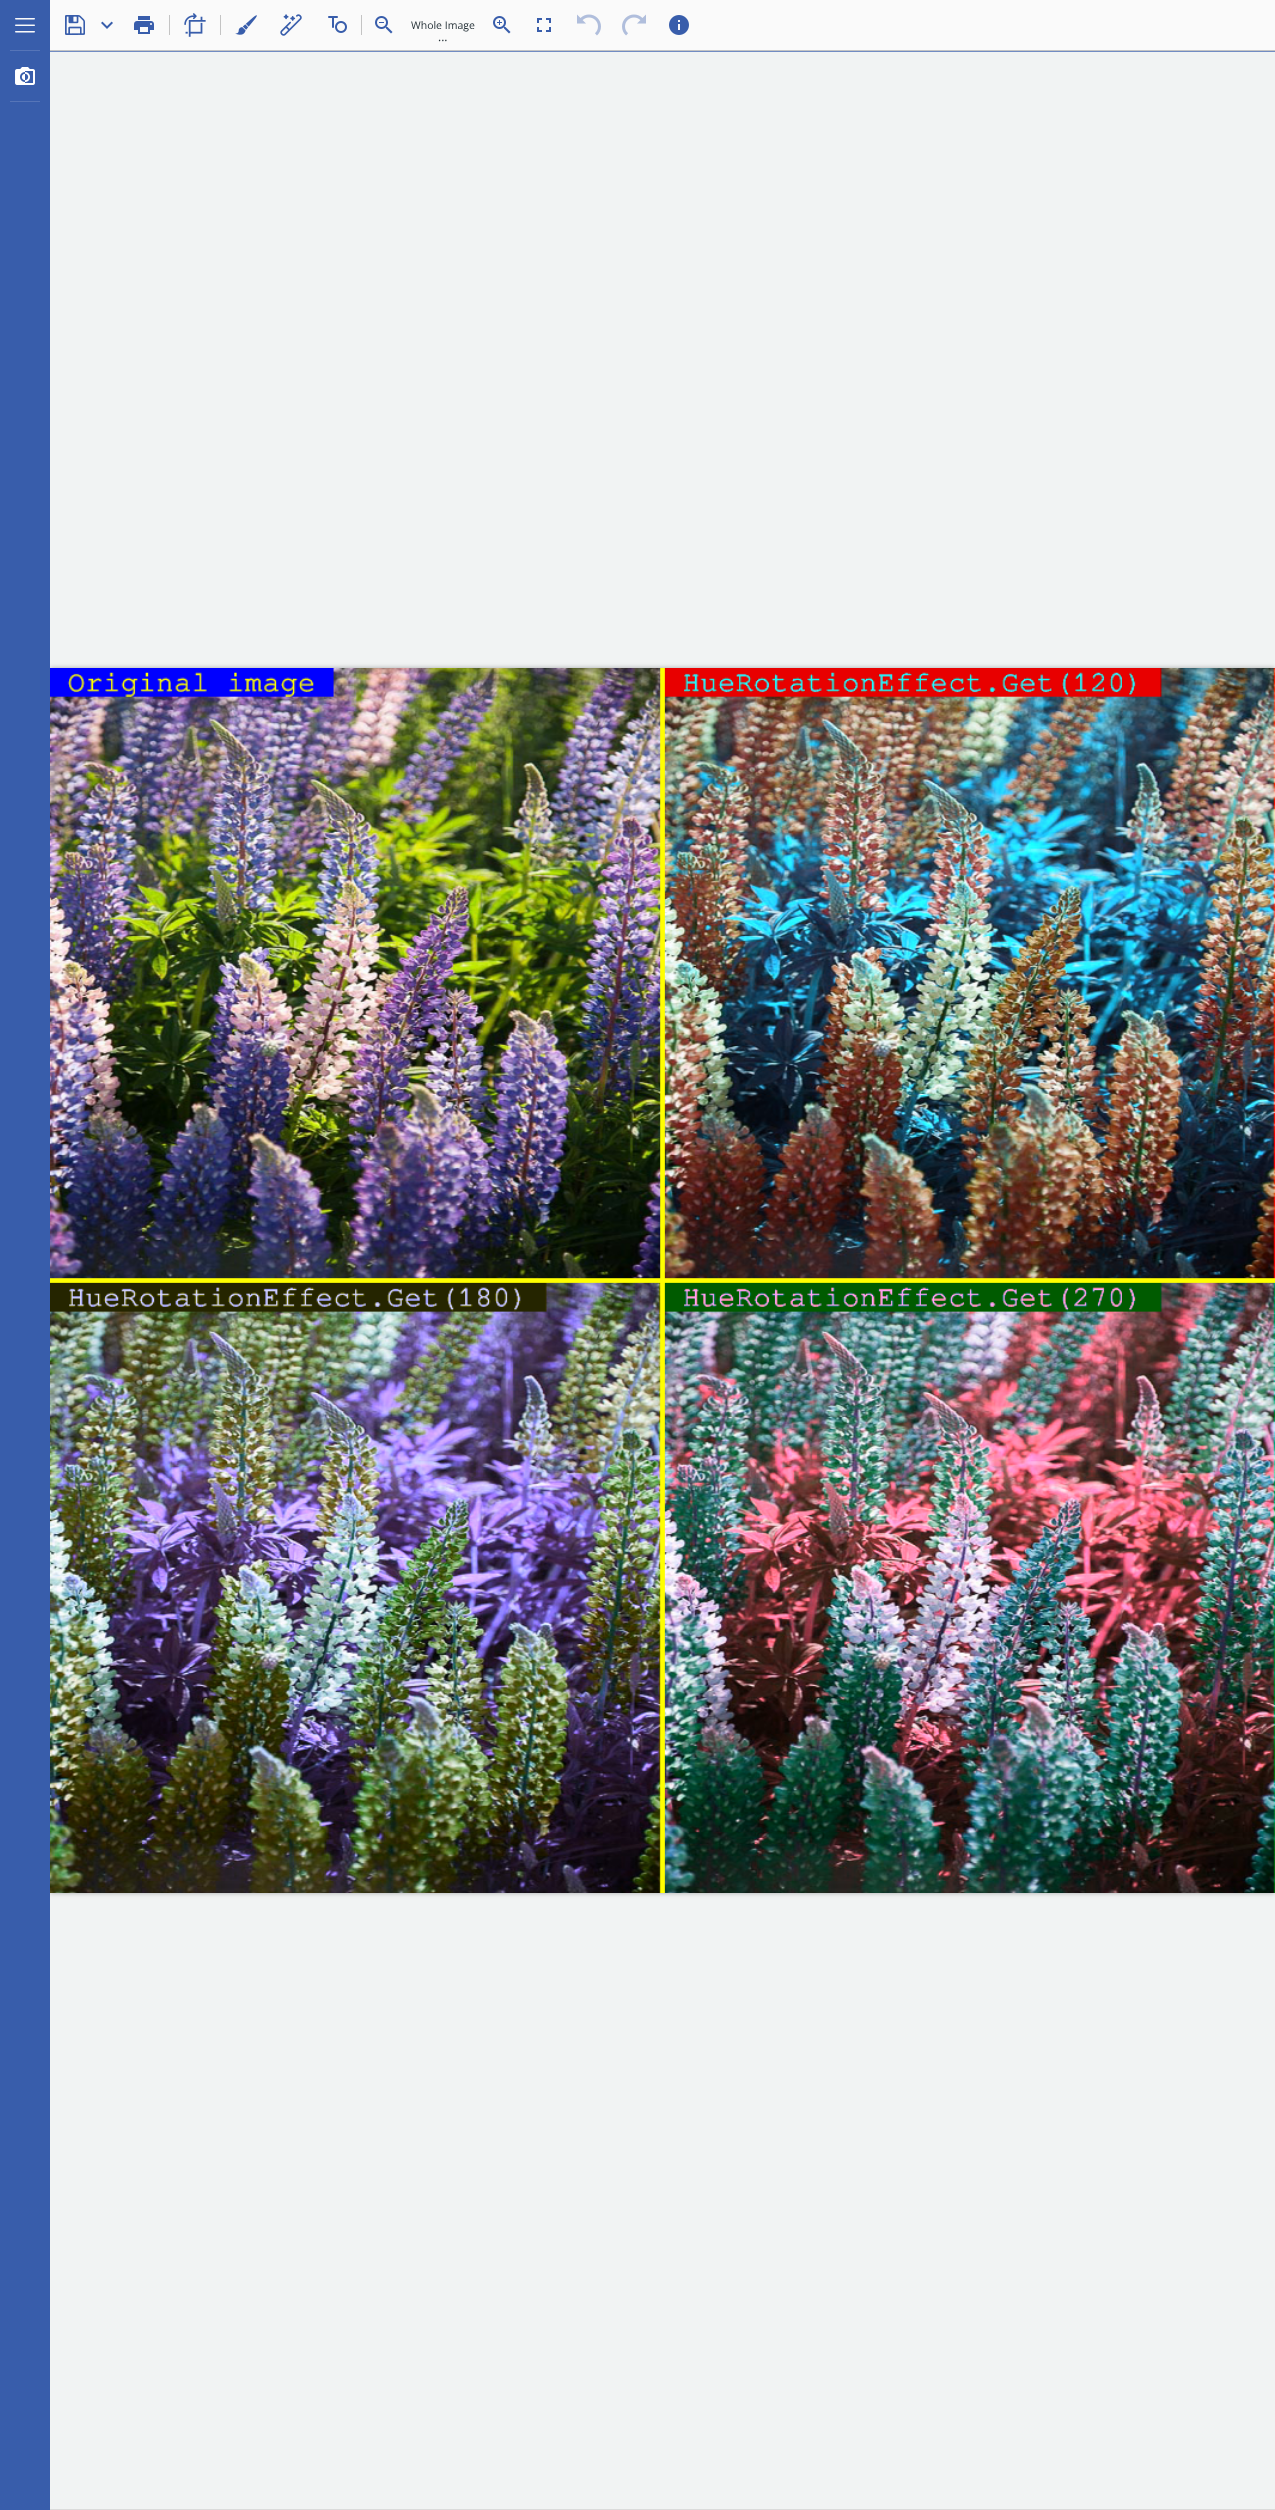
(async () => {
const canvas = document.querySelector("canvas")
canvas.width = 1275
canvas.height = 2510
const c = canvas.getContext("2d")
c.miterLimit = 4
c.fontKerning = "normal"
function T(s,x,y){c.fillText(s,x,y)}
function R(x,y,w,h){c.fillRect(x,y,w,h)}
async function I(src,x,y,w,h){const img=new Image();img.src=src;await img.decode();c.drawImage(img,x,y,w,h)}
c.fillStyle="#fafafa"
R(0,0,1275,2510)
c.fillStyle="#f1f3f3"
R(50,52,1225,2457)
c.fillStyle="#0000004d"
c.filter="blur(2.5px)"
c.beginPath()
c.rect(50,668,1225,1225)
c.fill()
c.filter="none"
c.fillStyle="#385dab"
R(0,0,50,2510)
await I("1.png",15,18,20,15)
c.fillStyle="#5675b8"
R(10,50,30,1)
await I("2.png",15,67,20,18)
R(10,101,30,1)
c.fillStyle="#c4c4c4"
R(50,50,1225,1)
await I("3.png",65,15,20,20)
await I("4.png",101,21,12,8)
await I("5.png",134,16,20,18)
R(169,15,1,20)
await I("6.png",184,13,22,24)
R(220,15,1,20)
await I("7.png",235,15,22,20)
await I("8.png",280,14,22,22)
await I("9.png",328,16,19,17)
R(361,15,1,20)
await I("10.png",375,16,18,18)
c.font="10.5px Open Sans"
c.fillStyle="#263238"
T("Whole Image",411,29)
await I("11.png",493,16,18,18)
c.font="12px Open Sans"
T("...",438,41)
await I("12.png",537,18,14,14)
await I("13.png",577,14,24,22)
await I("14.png",622,14,24,22)
await I("15.png",669,15,20,20)
c.fillStyle="#728cc3"
R(50,51,1225,1)
await I("16.png",50,668,1225,1225)
c.fillStyle="#dbdbdb"
R(50,2509,1225,1)
})()
